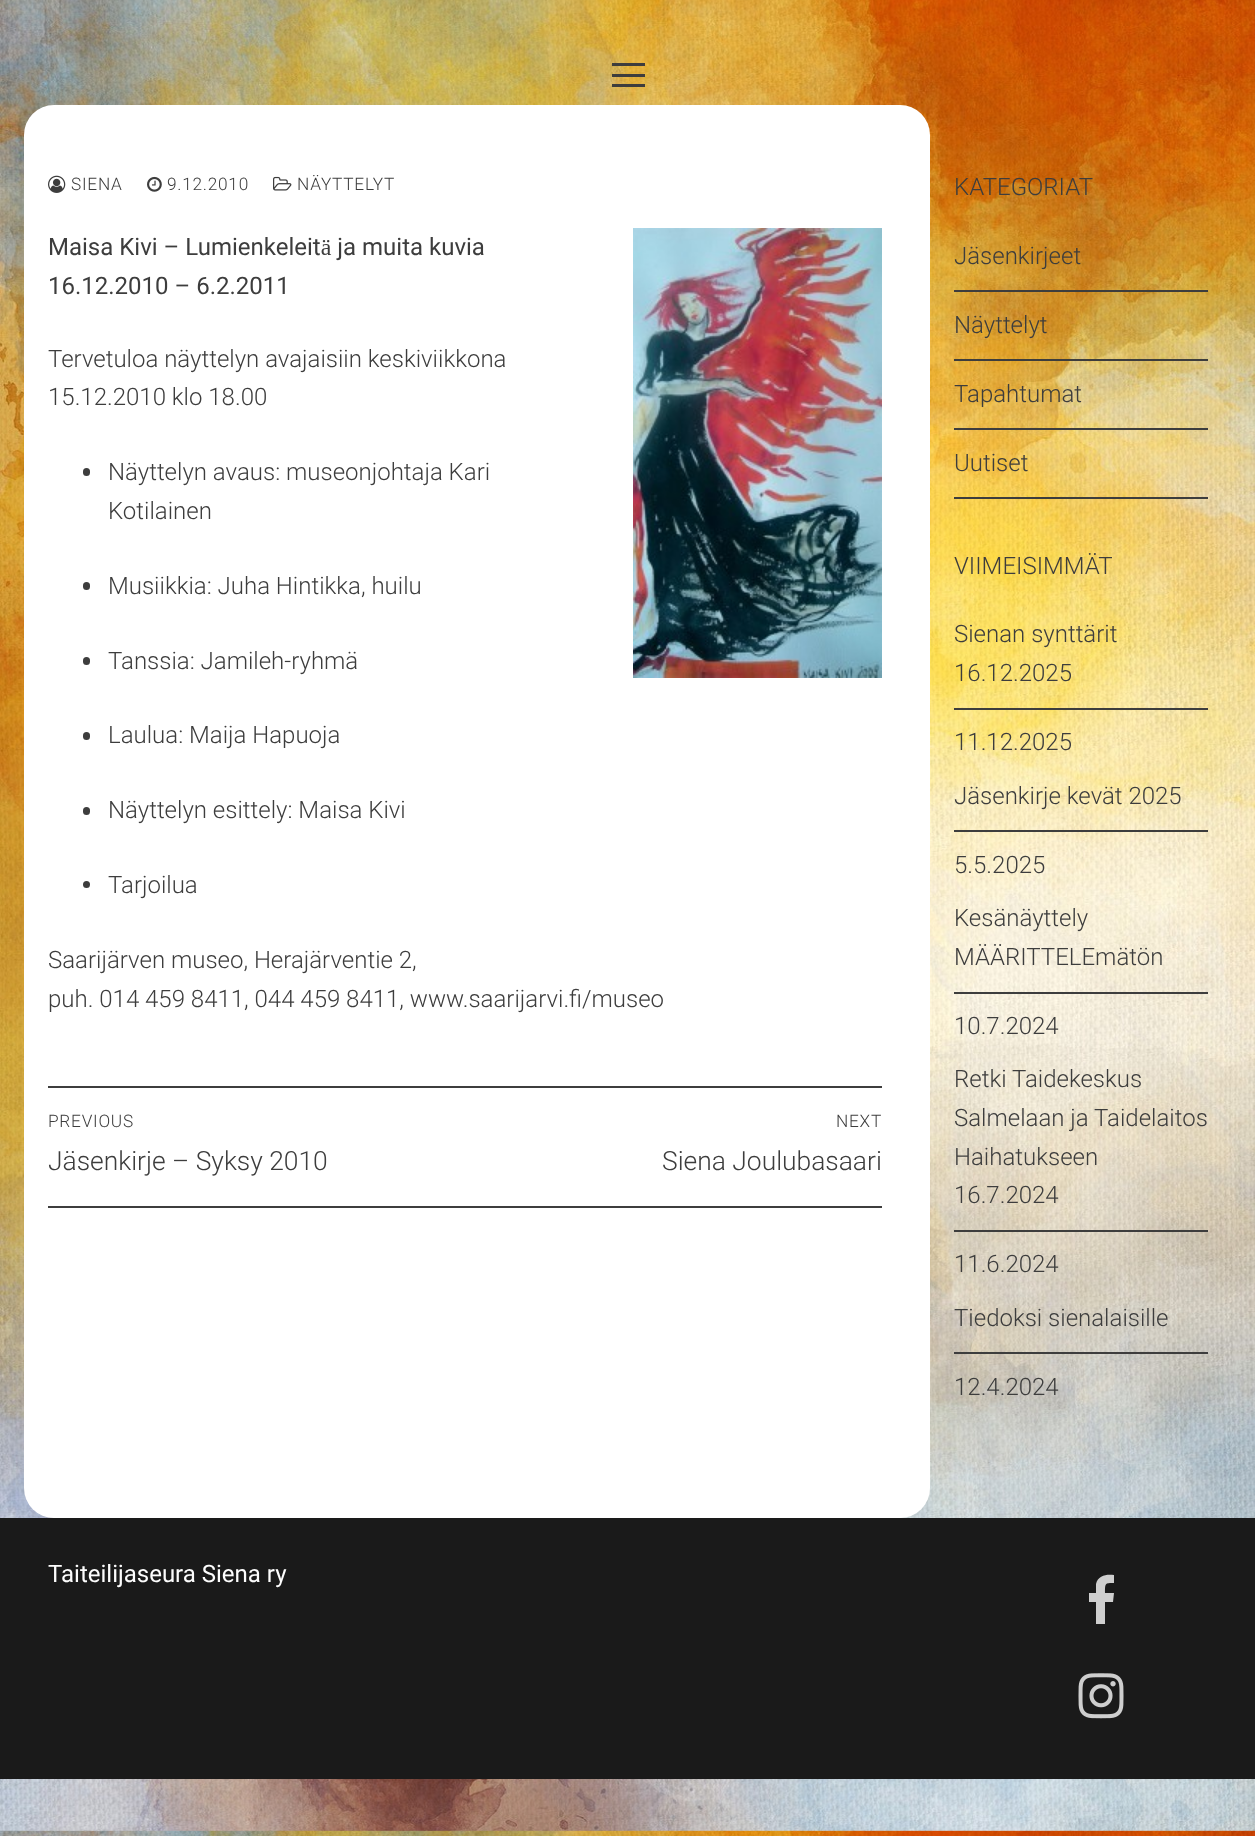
(async () => {
const canvas = document.querySelector("canvas")
canvas.width = 1255
canvas.height = 1836
const c = canvas.getContext("2d")
c.miterLimit = 4
c.fontKerning = "normal"
function T(s,x,y){c.fillText(s,x,y)}
function R(x,y,w,h){c.fillRect(x,y,w,h)}
function Q(x,y,w,h,r){c.beginPath();c.roundRect(x,y,w,h,r);c.fill()}
async function I(src,x,y,w,h){const img=new Image();img.src=src;await img.decode();c.drawImage(img,x,y,w,h)}
let path
c.fillStyle="#fff"
R(0,0,1255,1836)
await I("1.png",0,0,1255,1836)
c.fillStyle="#3d3d3d"
R(612,74,33,3)
R(612,63,33,3)
R(612,84,33,3)
c.fillStyle="#fff"
Q(24,105,906,1413,30)
await I("2.png",48,175,18,18)
c.letterSpacing="0.75px"
c.font="300 17.25px Roboto"
c.fillStyle="#3d3d3d"
T("SIENA",71,190)
await I("3.png",147,176,15,16)
T("9.12.2010",167,190)
await I("4.png",273,176,19,15)
T("NÄYTTELYT",297,190)
c.letterSpacing="0px"
c.font="24px Roboto"
T("Maisa Kivi – Lumienkeleitä ja muita kuvia",48,255)
await I("5.png",633,228,249,450)
T("16.12.2010 – 6.2.2011",48,294)
c.font="300 24px Roboto"
T("Tervetuloa näyttelyn avajaisiin keskiviikkona",48,367)
T("15.12.2010 klo 18.00",48,405)
Q(83,468,7,8,3.5)
T("Näyttelyn avaus: museonjohtaja Kari",108,480)
T("Kotilainen",108,519)
Q(83,582,7,8,3.5)
T("Musiikkia: Juha Hintikka, huilu",108,594)
Q(83,657,7,8,3.5)
T("Tanssia: Jamileh-ryhmä",108,669)
Q(83,732,7,8,3.5)
T("Laulua: Maija Hapuoja",108,743)
Q(83,807,7,8,3.5)
T("Näyttelyn esittely: Maisa Kivi",108,818)
c.beginPath()
c.arc(86.5,884.5,3.5,0,7)
c.fill()
T("Tarjoilua",108,893)
T("Saarijärven museo, Herajärventie 2,",48,968)
T("puh. 014 459 8411, 044 459 8411, www.saarijarvi.fi/museo",48,1007)
R(48,1086,834,2)
R(48,1206,834,2)
c.letterSpacing="0.75px"
c.font="300 17.25px Roboto"
T("PREVIOUS",48,1127)
c.letterSpacing="0px"
c.font="300 26.4px Roboto"
T("Jäsenkirje – Syksy 2010",48,1170)
c.letterSpacing="0.75px"
c.font="300 17.25px Roboto"
T("NEXT",836,1127)
c.letterSpacing="0px"
c.font="300 26.4px Roboto"
T("Siena Joulubasaari",662,1170)
c.font="300 24px Roboto"
T("KATEGORIAT",954,195)
R(954,290,254,2)
T("Jäsenkirjeet",954,264)
R(954,359,254,2)
T("Näyttelyt",954,333)
R(954,428,254,2)
T("Tapahtumat",954,402)
R(954,497,254,2)
T("Uutiset",954,471)
T("VIIMEISIMMÄT",954,574)
R(954,708,254,2)
T("Sienan synttärit",954,642)
T("16.12.2025",954,681)
T("11.12.2025",954,750)
R(954,830,254,2)
T("Jäsenkirje kevät 2025",954,804)
T("5.5.2025",954,873)
R(954,992,254,2)
T("Kesänäyttely",954,926)
T("MÄÄRITTELEmätön",954,965)
T("10.7.2024",954,1034)
R(954,1230,254,2)
T("Retki Taidekeskus",954,1087)
T("Salmelaan ja Taidelaitos",954,1126)
T("Haihatukseen",954,1165)
T("16.7.2024",954,1203)
T("11.6.2024",954,1272)
R(954,1352,254,2)
T("Tiedoksi sienalaisille",954,1326)
T("12.4.2024",954,1395)
c.fillStyle="#1a1a1a"
R(0,1518,1255,261)
c.font="24px Roboto"
c.fillStyle="#fdfdfd"
T("Taiteilijaseura Siena ry",48,1582)
c.fillStyle="#cfcfcf"
path = new Path2D("M1114 1575v8c-9 0-9 0-9 10h9l-1 9h-8v22h-9v-22h-7v-9h7v-9c2-9 11-10 18-9z")
c.fill(path)
await I("6.png",1078,1673,46,46)
})()
